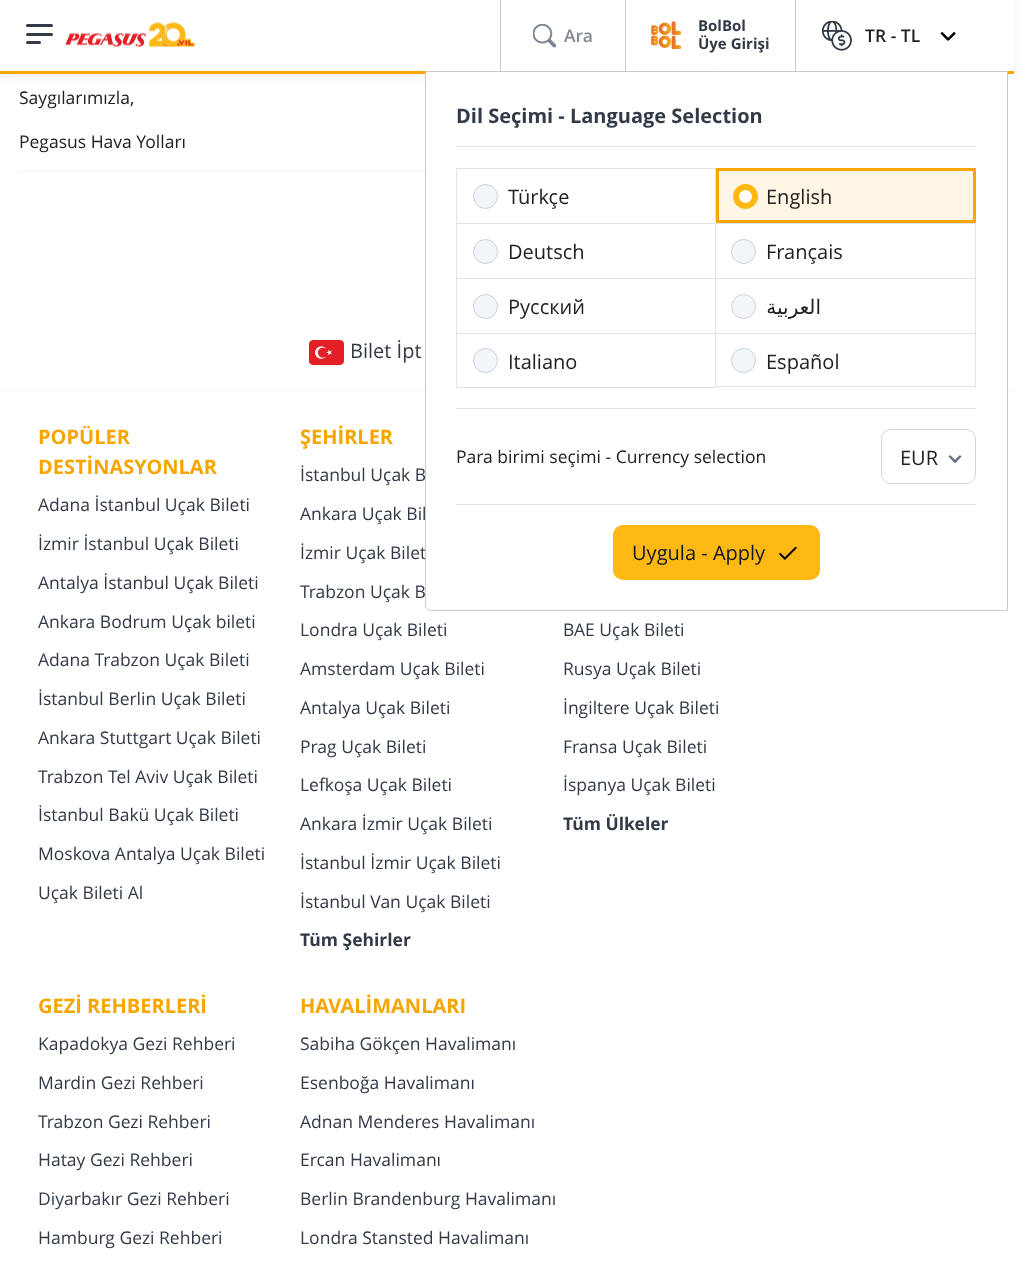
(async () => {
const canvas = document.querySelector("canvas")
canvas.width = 1032
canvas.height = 1264
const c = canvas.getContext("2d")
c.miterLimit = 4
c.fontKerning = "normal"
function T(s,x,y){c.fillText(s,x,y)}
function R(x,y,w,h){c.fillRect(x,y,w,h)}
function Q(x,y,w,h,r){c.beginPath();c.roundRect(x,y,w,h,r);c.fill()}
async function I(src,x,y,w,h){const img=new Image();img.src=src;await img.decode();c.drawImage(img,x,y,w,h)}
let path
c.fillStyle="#fff"
R(0,0,1032,1264)
c.font="17.5px Open Sans"
c.fillStyle="#212121"
T("Saygılarımızla,",19,104)
T("Pegasus Hava Yolları",19,148)
c.fillStyle="#f1f1ee"
R(19,171,406,1)
c.fillStyle="#0000000f"
c.filter="blur(4.5px)"
c.beginPath()
c.rect(0,1,1014,75)
c.fill()
c.filter="none"
c.fillStyle="#fff"
R(0,0,1014,71)
c.fillStyle="#f7a500"
R(0,71,1014,3)
c.fillStyle="#323a47"
Q(26,33,27,3,1.5)
Q(26,24,27,3,1.5)
Q(26,41,15,3,1.5)
await I("1.png",65,22,130,26)
c.fillStyle="#c8cacc"
R(625,0,1,71)
await I("2.png",651,21,30,28)
c.font="bold 15px Open Sans"
c.fillStyle="#323a47"
T("BolBol",698,31)
T("Üye Girişi",698,49)
c.fillStyle="#c8cacc"
R(795,0,1,71)
await I("3.png",822,21,30,30)
c.font="600 17.5px Open Sans"
c.fillStyle="#212121"
T("TR - TL",865,42)
await I("4.png",940,32,16,9)
c.fillStyle="#f3f6f8"
R(0,390,1014,1)
c.font="17.5px Open Sans"
c.fillStyle="#323a47"
T("İstanbul Uçak B",300,481)
T("Ankara Uçak Bil",300,520)
T("İzmir Uçak Bilet",300,559)
T("Trabzon Uçak B",300,598)
c.fillStyle="#fff"
c.beginPath()
c.roundRect(425.5,71.5,582,539,[0,0,0,5.5])
c.fill()
c.strokeStyle="#c8cacc"
c.stroke()
c.fillStyle="#dfe3ea"
R(456,146,520,1)
c.font="bold 20px Open Sans"
c.fillStyle="#323a47"
T("Dil Seçimi - Language Selection",456,123)
c.fillStyle="#dfe3ea"
R(456,408,520,1)
R(456,168,260,1)
R(715,168,1,55)
R(456,168,1,55)
c.fillStyle="#f3f6f8"
c.beginPath()
c.arc(485.5,196.5,12,0,7)
c.fill()
c.strokeStyle="#cad0db"
c.stroke()
c.font="20px Open Sans"
c.fillStyle="#212121"
T("Türkçe",508,204)
c.fillStyle="#fff6e6"
c.beginPath()
c.rect(717.5,169.5,257,52)
c.fill()
c.strokeStyle="#f7a500"
c.lineWidth=3
c.stroke()
c.fillStyle="#fff"
c.beginPath()
c.arc(745.5,196.5,9.5,0,7)
c.fill()
c.strokeStyle="#fdb813"
c.lineWidth=6
c.stroke()
c.fillStyle="#212121"
T("English",766,204)
c.fillStyle="#dfe3ea"
R(456,223,520,1)
R(715,223,1,55)
R(456,223,1,55)
c.fillStyle="#f3f6f8"
c.beginPath()
c.arc(485.5,251.5,12,0,7)
c.fill()
c.strokeStyle="#cad0db"
c.lineWidth=1
c.stroke()
c.fillStyle="#212121"
T("Deutsch",508,259)
c.fillStyle="#dfe3ea"
R(975,223,1,55)
c.fillStyle="#f3f6f8"
c.beginPath()
c.arc(743.5,251.5,12,0,7)
c.fill()
c.stroke()
c.fillStyle="#212121"
T("Français",766,259)
c.fillStyle="#dfe3ea"
R(456,278,520,1)
R(715,278,1,55)
R(456,278,1,55)
c.fillStyle="#f3f6f8"
c.beginPath()
c.arc(485.5,306.5,12,0,7)
c.fill()
c.stroke()
c.fillStyle="#212121"
T("Русский",508,314)
c.fillStyle="#dfe3ea"
R(975,278,1,55)
c.fillStyle="#f3f6f8"
c.beginPath()
c.arc(743.5,306.5,12,0,7)
c.fill()
c.stroke()
c.direction="rtl"
c.font="20px DejaVu Sans"
c.fillStyle="#212121"
T("العربية",821,314)
c.strokeStyle="#dfe3ea"
c.strokeRect(456.5,333.5,259,54)
c.fillStyle="#f3f6f8"
c.beginPath()
c.arc(485.5,360.5,12,0,7)
c.fill()
c.strokeStyle="#cad0db"
c.stroke()
c.direction="ltr"
c.font="20px Open Sans"
c.fillStyle="#212121"
T("Italiano",508,369)
c.fillStyle="#dfe3ea"
R(716,333,260,1)
R(975,333,1,55)
R(716,386,260,1)
c.fillStyle="#f3f6f8"
c.beginPath()
c.arc(743.5,360.5,12,0,7)
c.fill()
c.stroke()
c.fillStyle="#212121"
T("Español",766,369)
c.fillStyle="#dfe3ea"
R(456,504,520,1)
c.font="17.5px Open Sans"
c.fillStyle="#212121"
T("Para birimi seçimi - Currency selection",456,463)
c.beginPath()
c.roundRect(881.5,429.5,94,54,9.5)
c.strokeStyle="#d0d5dd"
c.stroke()
c.font="20px Open Sans"
T("EUR",900,465)
c.fillStyle="#667085"
path = new Path2D("M953.5 461l6.5-6l1.5 1.5l-6 6.5z")
c.fill(path)
path = new Path2D("M948.5 456.5l1.5-1.5l6.5 6l-2 2z")
c.fill(path)
c.fillStyle="#fdb813"
Q(613,525,207,55,10)
c.fillStyle="#101828"
T("Uygula - Apply",632,560)
await I("5.png",779,546,18,14)
c.fillStyle="#c8cacc"
R(500,0,1,71)
await I("6.png",533,24,23,24)
c.font="600 17.5px Open Sans"
c.fillStyle="#848991"
T("Ara",564,42)
await I("7.png",309,340,35,25)
c.font="20px Open Sans"
c.fillStyle="#323a47"
T("Bilet İpt",350,358)
c.font="bold 20px Open Sans"
c.fillStyle="#f7a500"
T("POPÜLER",38,444)
T("DESTİNASYONLAR",38,474)
c.font="17.5px Open Sans"
c.fillStyle="#323a47"
T("Adana İstanbul Uçak Bileti",38,511)
T("İzmir İstanbul Uçak Bileti",38,550)
T("Antalya İstanbul Uçak Bileti",38,589)
T("Ankara Bodrum Uçak bileti",38,628)
T("Adana Trabzon Uçak Bileti",38,666)
T("İstanbul Berlin Uçak Bileti",38,705)
T("Ankara Stuttgart Uçak Bileti",38,744)
T("Trabzon Tel Aviv Uçak Bileti",38,783)
T("İstanbul Bakü Uçak Bileti",38,821)
T("Moskova Antalya Uçak Bileti",38,860)
T("Uçak Bileti Al",38,899)
c.font="bold 20px Open Sans"
c.fillStyle="#f7a500"
T("ŞEHİRLER",300,444)
c.font="17.5px Open Sans"
c.fillStyle="#323a47"
T("Londra Uçak Bileti",300,636)
T("Amsterdam Uçak Bileti",300,675)
T("Antalya Uçak Bileti",300,714)
T("Prag Uçak Bileti",300,753)
T("Lefkoşa Uçak Bileti",300,791)
T("Ankara İzmir Uçak Bileti",300,830)
T("İstanbul İzmir Uçak Bileti",300,869)
T("İstanbul Van Uçak Bileti",300,908)
c.font="bold 17.5px Open Sans"
T("Tüm Şehirler",300,946)
c.font="17.5px Open Sans"
T("BAE Uçak Bileti",563,636)
T("Rusya Uçak Bileti",563,675)
T("İngiltere Uçak Bileti",563,714)
T("Fransa Uçak Bileti",563,753)
T("İspanya Uçak Bileti",563,791)
c.font="bold 17.5px Open Sans"
T("Tüm Ülkeler",563,830)
c.font="bold 20px Open Sans"
c.fillStyle="#f7a500"
T("GEZİ REHBERLERİ",38,1013)
c.font="17.5px Open Sans"
c.fillStyle="#323a47"
T("Kapadokya Gezi Rehberi",38,1050)
T("Mardin Gezi Rehberi",38,1089)
T("Trabzon Gezi Rehberi",38,1128)
T("Hatay Gezi Rehberi",38,1166)
T("Diyarbakır Gezi Rehberi",38,1205)
T("Hamburg Gezi Rehberi",38,1244)
c.font="bold 20px Open Sans"
c.fillStyle="#f7a500"
T("HAVALİMANLARI",300,1013)
c.font="17.5px Open Sans"
c.fillStyle="#323a47"
T("Sabiha Gökçen Havalimanı",300,1050)
T("Esenboğa Havalimanı",300,1089)
T("Adnan Menderes Havalimanı",300,1128)
T("Ercan Havalimanı",300,1166)
T("Berlin Brandenburg Havalimanı",300,1205)
T("Londra Stansted Havalimanı",300,1244)
})()
